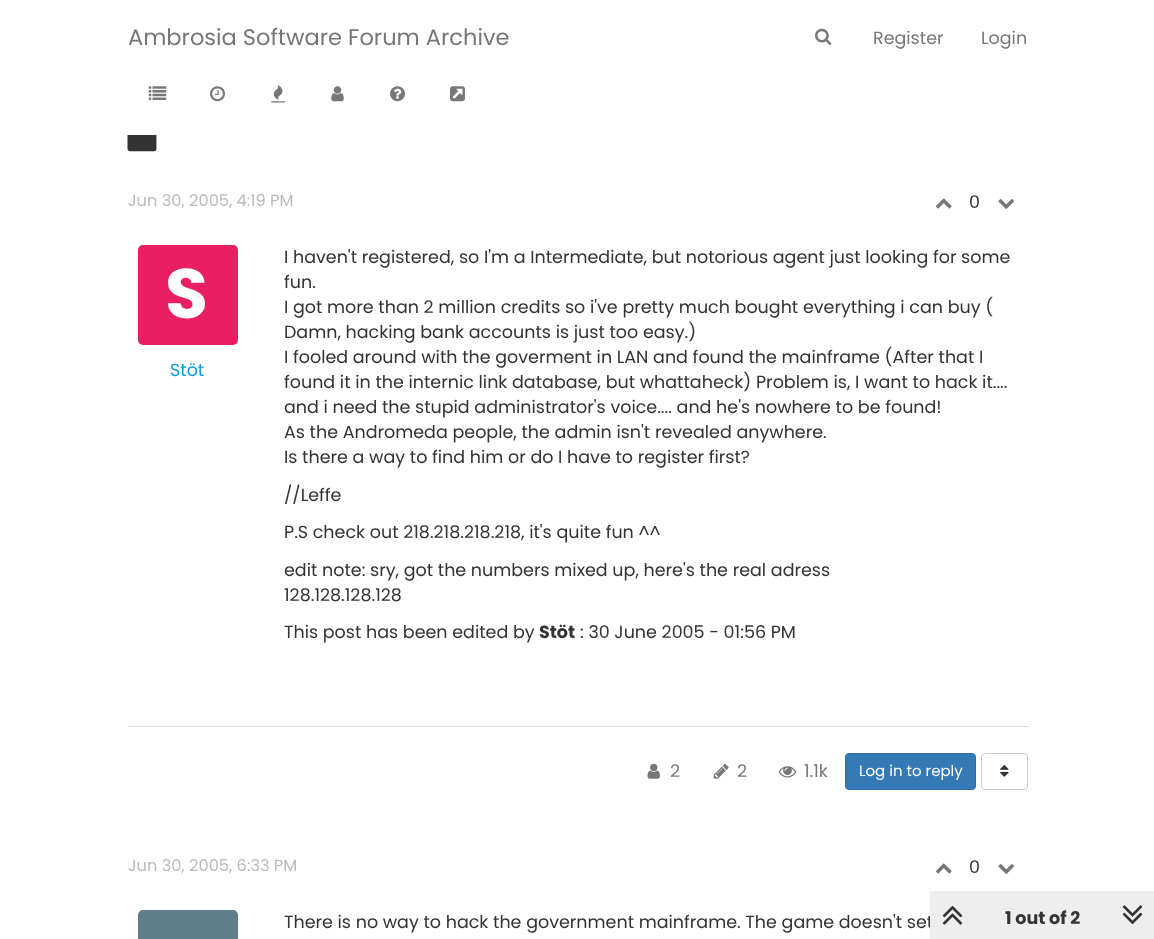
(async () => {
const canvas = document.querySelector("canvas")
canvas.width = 1154
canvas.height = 939
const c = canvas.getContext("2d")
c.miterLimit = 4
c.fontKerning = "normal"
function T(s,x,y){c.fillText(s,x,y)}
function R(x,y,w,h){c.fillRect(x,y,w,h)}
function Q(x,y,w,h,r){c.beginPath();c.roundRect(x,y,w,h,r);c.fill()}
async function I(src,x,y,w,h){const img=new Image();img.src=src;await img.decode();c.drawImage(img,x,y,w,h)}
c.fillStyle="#fff"
R(0,0,1154,939)
c.font="22.5px Poppins"
c.fillStyle="#777"
T("Ambrosia Software Forum Archive",128,45)
await I("1.png",815,28,17,17)
c.font="17.5px Poppins"
T("Register",873,44)
T("Login",981,44)
await I("2.png",148,86,19,14)
await I("3.png",210,86,15,16)
await I("4.png",271,85,14,18)
await I("5.png",331,86,13,16)
await I("6.png",390,86,15,16)
await I("7.png",450,86,15,16)
await I("8.png",127,135,30,17)
c.fillStyle="#ddd"
R(128,726,900,1)
c.font="16.25px Poppins"
c.fillStyle="#bbb"
T("Jun 30, 2005, 4:19 PM",128,206)
await I("9.png",935,198,17,11)
c.font="17.5px Poppins"
c.fillStyle="#333"
T("0",969,208)
await I("10.png",998,199,17,10)
c.fillStyle="#e91e63"
Q(138,245,100,100,5)
c.font="bold 70px Poppins"
c.fillStyle="#fff"
T("S",165,318)
c.font="17.5px Poppins"
c.fillStyle="#039be5"
T("Stöt",170,376)
c.fillStyle="#333"
T("I haven't registered, so I'm a Intermediate, but notorious agent just looking for some",284,263)
T("fun.",284,288)
T("I got more than 2 million credits so i've pretty much bought everything i can buy (",284,313)
T("Damn, hacking bank accounts is just too easy.)",284,338)
T("I fooled around with the goverment in LAN and found the mainframe (After that I",284,363)
T("found it in the internic link database, but whattaheck) Problem is, I want to hack it....",284,388)
T("and i need the stupid administrator's voice.... and he's nowhere to be found!",284,413)
T("As the Andromeda people, the admin isn't revealed anywhere.",284,438)
T("Is there a way to find him or do I have to register first?",284,463)
T("//Leffe",284,501)
T("P.S check out 218.218.218.218, it's quite fun ^^",284,538)
T("edit note: sry, got the numbers mixed up, here's the real adress",284,576)
T("128.128.128.128",284,601)
T("This post has been edited by",284,638)
c.font="bold 17.5px Poppins"
T("Stöt",539,638)
c.font="17.5px Poppins"
T(": 30 June 2005 - 01:56 PM",580,638)
await I("11.png",647,763,13,16)
c.fillStyle="#777"
T("2",670,777)
await I("12.png",713,764,16,15)
T("2",737,777)
await I("13.png",778,766,19,12)
T("1.1k",804,777)
c.fillStyle="#337ab7"
c.beginPath()
c.roundRect(845.5,753.5,130,36,3.5)
c.fill()
c.strokeStyle="#2e6da4"
c.stroke()
c.font="15px Poppins"
c.fillStyle="#fff"
T("Log in to reply",859,776)
c.beginPath()
c.roundRect(981.5,753.5,46,36,3.5)
c.strokeStyle="#ccc"
c.stroke()
await I("14.png",1000,765,9,12)
c.font="16.25px Poppins"
c.fillStyle="#bbb"
T("Jun 30, 2005, 6:33 PM",128,871)
await I("9.png",935,863,17,11)
c.font="17.5px Poppins"
c.fillStyle="#333"
T("0",969,873)
await I("10.png",998,864,17,10)
c.fillStyle="#607d8b"
Q(138,910,100,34,5)
c.fillStyle="#333"
T("There is no way to hack the government mainframe. The game doesn't set",284,928)
c.fillStyle="#eee"
R(930,891,224,48)
await I("15.png",942,905,21,20)
c.font="bold 17.5px Poppins"
c.fillStyle="#333"
T("1 out of 2",1005,924)
await I("16.png",1122,905,21,20)
})()
